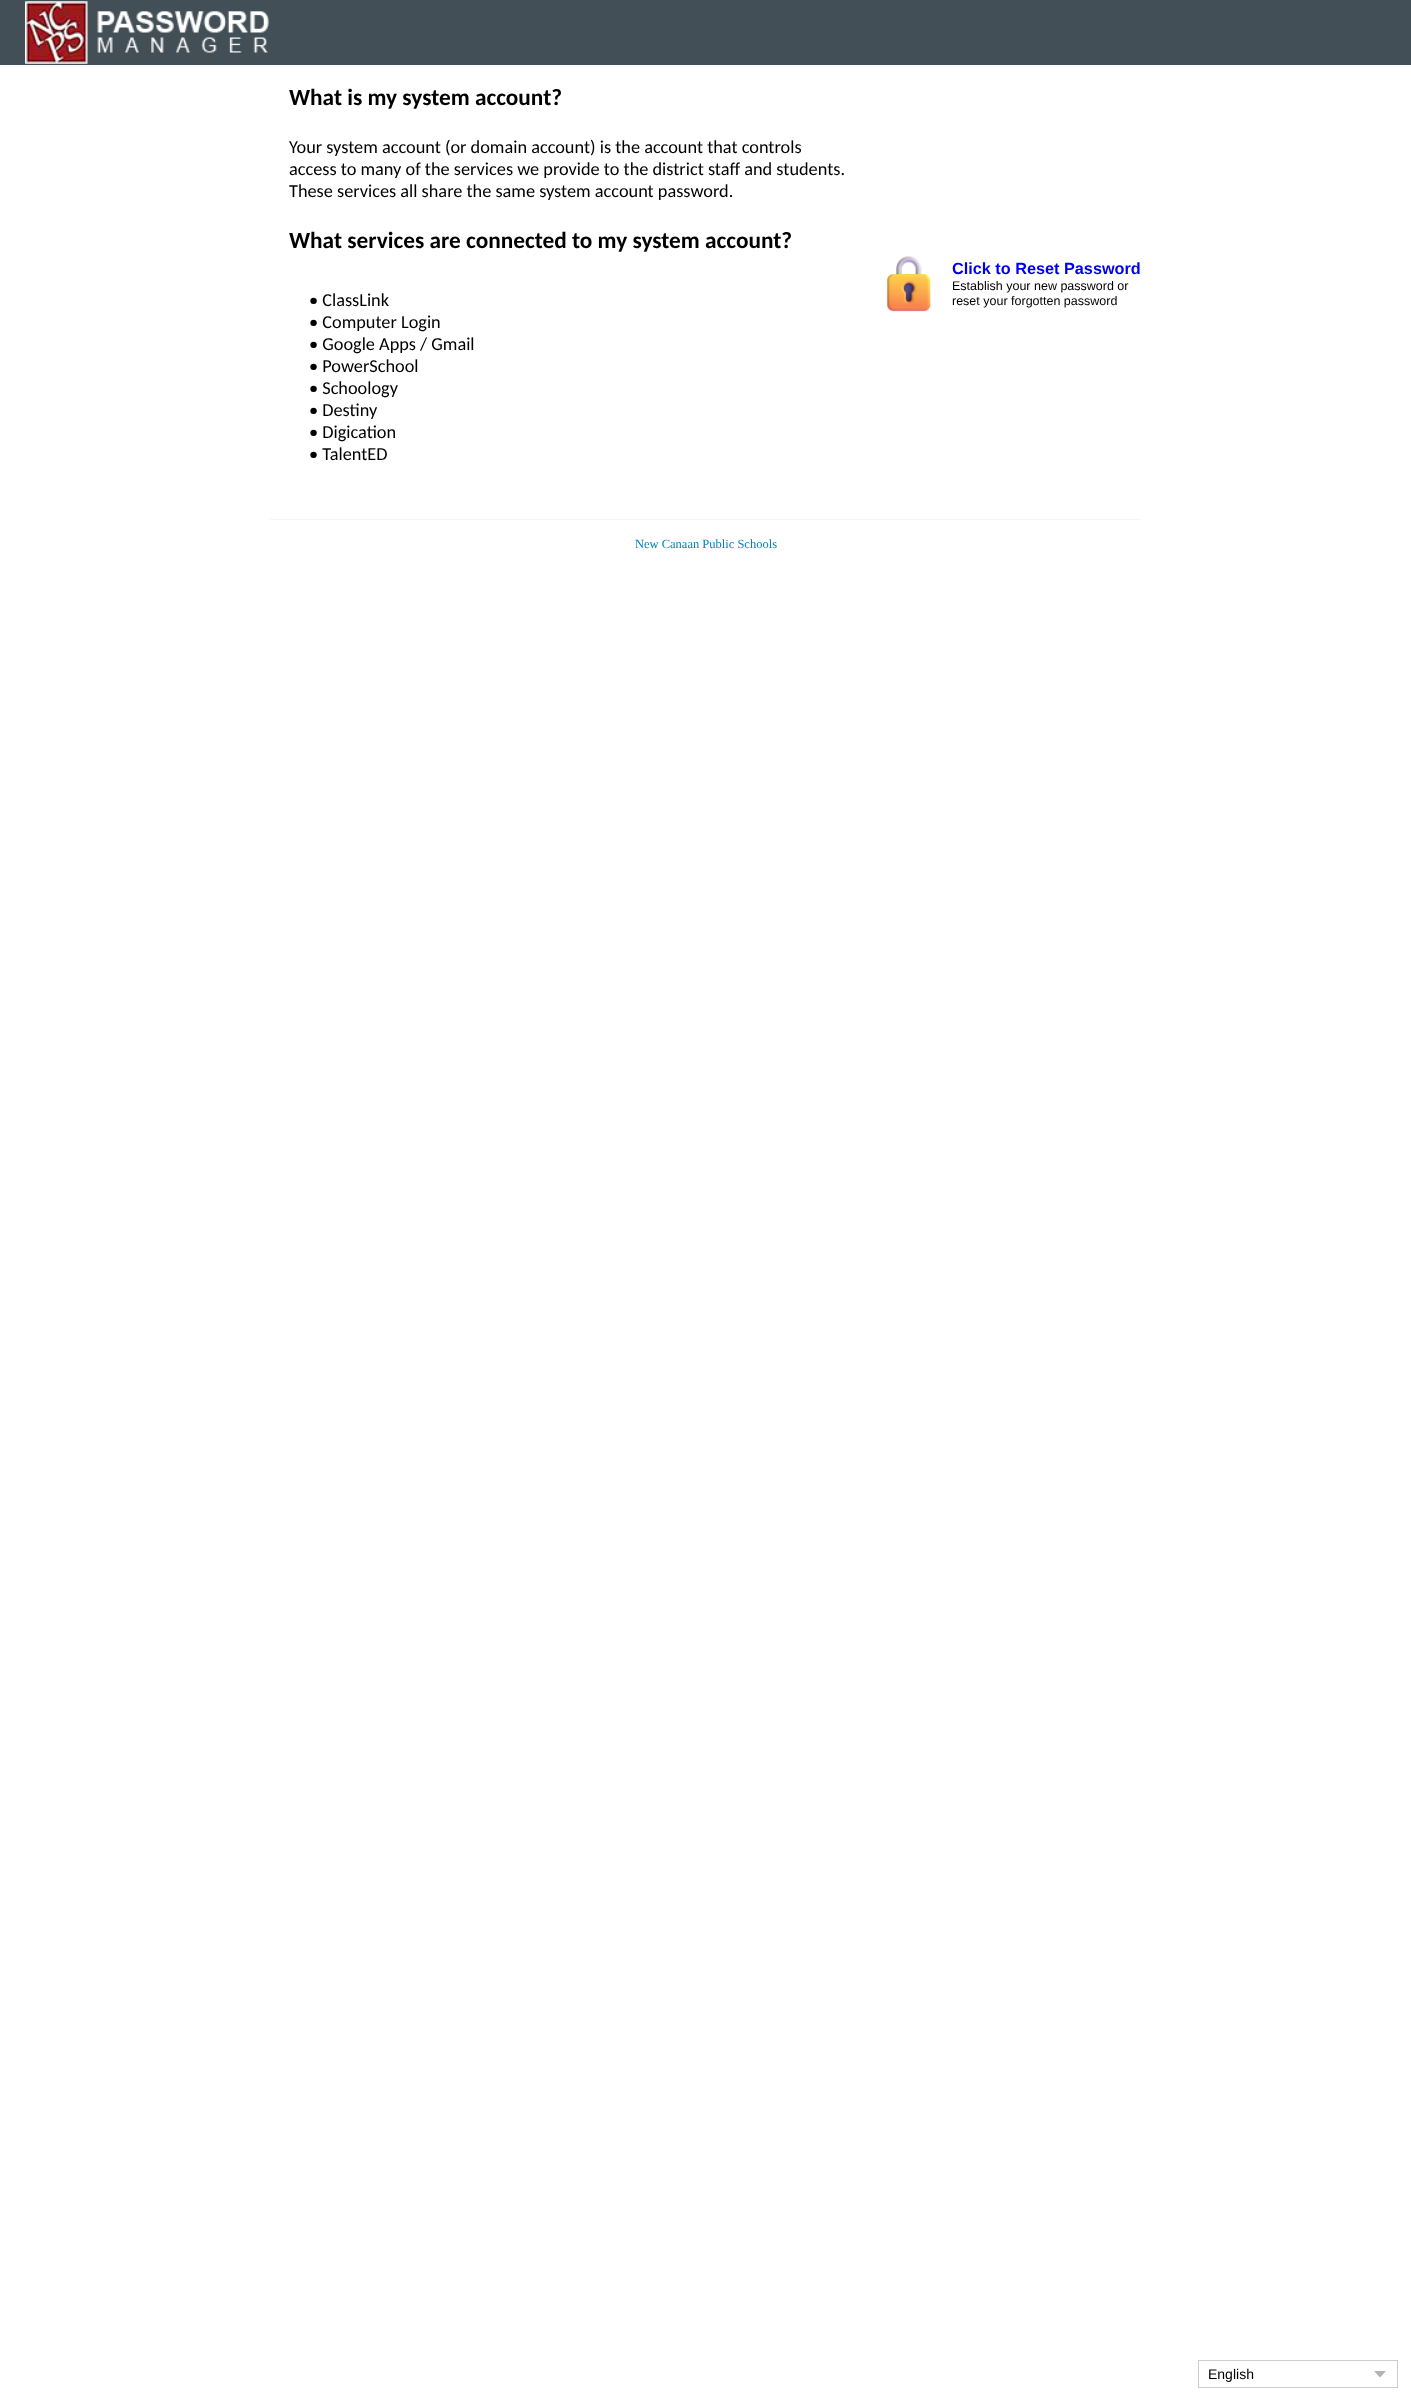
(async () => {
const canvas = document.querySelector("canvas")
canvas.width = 1411
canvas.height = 2400
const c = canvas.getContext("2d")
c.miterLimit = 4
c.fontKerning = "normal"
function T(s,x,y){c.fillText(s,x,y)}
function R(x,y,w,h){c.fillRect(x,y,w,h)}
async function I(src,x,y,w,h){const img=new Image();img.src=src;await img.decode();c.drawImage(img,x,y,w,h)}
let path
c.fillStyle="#fff"
R(0,0,1411,2400)
c.fillStyle="#434f56"
R(0,0,1411,65)
await I("1.png",25,1,244,63)
c.font="bold 23.3px Carlito"
c.fillStyle="#000"
T("What is my system account?",289,105)
c.font="18.3px Carlito"
T("Your system account (or domain account) is the account that controls",289,153)
T("access to many of the services we provide to the district staff and students.",289,175)
T("These services all share the same system account password.",289,197)
c.font="bold 23.3px Carlito"
T("What services are connected to my system account?",289,248)
c.font="18.3px Carlito"
T("• ClassLink",309,306)
T("• Computer Login",309,328)
T("• Google Apps / Gmail",309,350)
T("• PowerSchool",309,372)
T("• Schoology",309,394)
T("• Destiny",309,416)
T("• Digication",309,438)
T("• TalentED",309,460)
await I("2.png",886,256,45,56)
c.font="bold 16.25px Liberation Sans"
c.fillStyle="#00e"
T("Click to Reset Password",952,274)
c.font="12.5px Liberation Sans"
c.fillStyle="#000"
T("Establish your new password or",952,290)
T("reset your forgotten password",952,305)
c.fillStyle="#f6f6f6"
R(270,519,871,1)
c.font="12.5px Liberation Serif"
c.fillStyle="#017fbe"
T("New Canaan Public Schools",635,548)
c.strokeStyle="#ccc"
c.strokeRect(1198.5,2360.5,199,27)
c.font="14px Liberation Sans"
c.fillStyle="#000"
T("English",1208,2379)
c.fillStyle="#afb4b8"
path = new Path2D("M1374 2371h12l-6 6.5z")
c.fill(path)
})()
